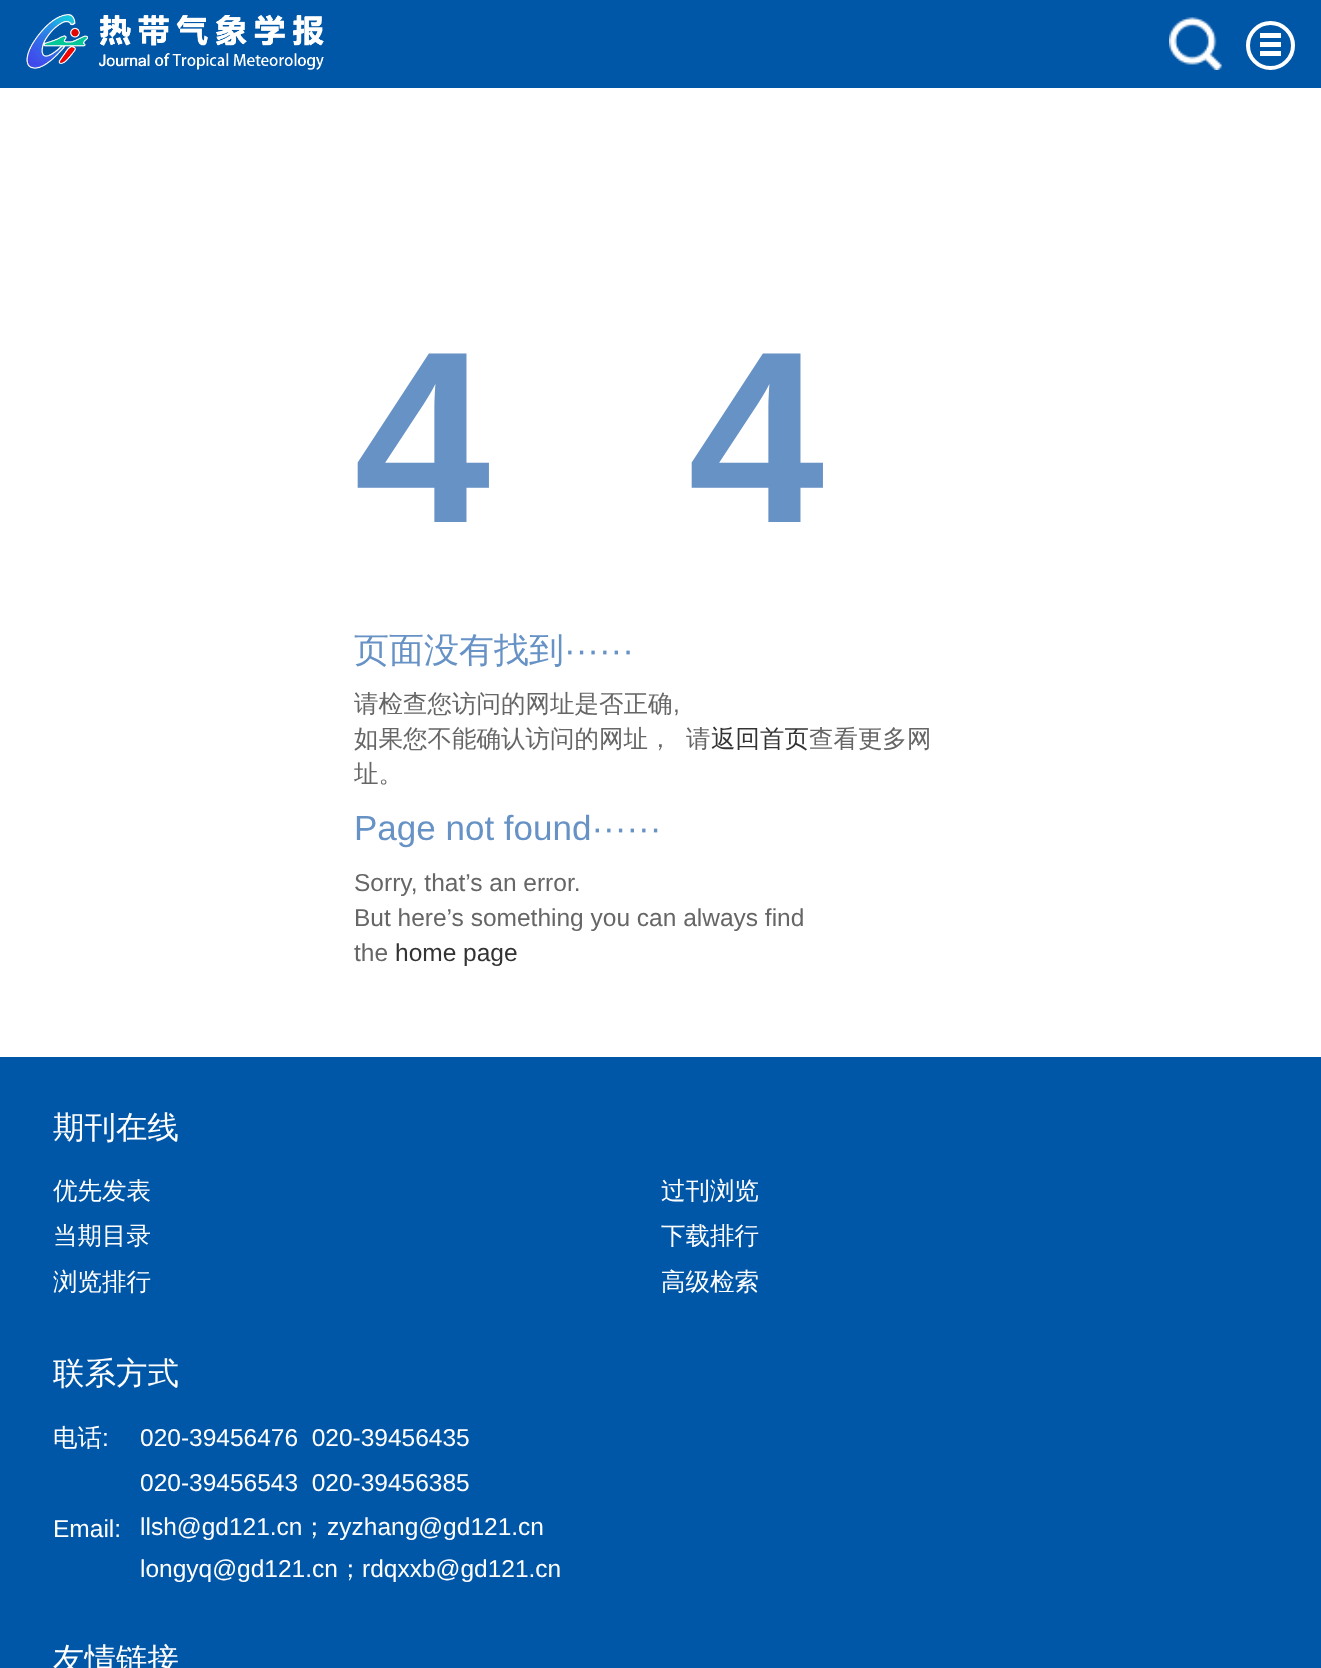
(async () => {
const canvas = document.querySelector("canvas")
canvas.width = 1321
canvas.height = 1668
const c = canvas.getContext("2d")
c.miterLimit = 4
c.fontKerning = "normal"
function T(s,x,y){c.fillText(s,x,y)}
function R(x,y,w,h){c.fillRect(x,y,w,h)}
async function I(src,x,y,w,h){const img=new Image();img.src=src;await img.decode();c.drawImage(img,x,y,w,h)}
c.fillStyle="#fff"
R(0,0,1321,1668)
c.fillStyle="#0056a7"
R(0,0,1321,88)
await I("1.png",26,14,298,56)
await I("2.png",1169,17,53,53)
c.beginPath()
c.arc(1270.5,45.5,22.5,0,7)
c.strokeStyle="#fff"
c.lineWidth=4
c.stroke()
c.fillStyle="#fff"
R(1260,33,21,5)
R(1260,42,21,5)
R(1260,51,21,5)
c.font="bold 245px Liberation Sans"
c.fillStyle="#6792c5"
T("4",354,522)
T("4",688,522)
c.font="500 35px WenQuanYi Zen Hei"
T("页面没有找到",354,662)
c.font="35px Liberation Sans"
T("······",564,662)
c.font="500 24.5px WenQuanYi Zen Hei"
c.fillStyle="#666"
T("请检查您访问的网址是否正确",354,712)
c.font="24.5px Liberation Sans"
T(",",673,712)
c.font="500 24.5px WenQuanYi Zen Hei"
T("如果您不能确认访问的网址，",354,747)
T("请",686,747)
c.fillStyle="#333"
T("返回首页",711,747)
c.fillStyle="#666"
T("查看更多网",809,747)
T("址。",354,782)
c.font="35px Liberation Sans"
c.fillStyle="#6792c5"
T("Page not found······",354,840)
c.font="24.5px Liberation Sans"
c.fillStyle="#666"
T("Sorry, that’s an error.",354,891)
T("But here’s something you can always find",354,926)
T("the",354,961)
c.fillStyle="#333"
T("home page",395,961)
c.fillStyle="#0056a7"
R(0,1057,1321,611)
c.font="500 31.5px WenQuanYi Zen Hei"
c.fillStyle="#fff"
T("期刊在线",53,1138)
c.font="500 24.5px WenQuanYi Zen Hei"
T("优先发表",53,1199)
T("过刊浏览",661,1199)
T("当期目录",53,1244)
T("下载排行",661,1244)
T("浏览排行",53,1290)
T("高级检索",661,1290)
c.font="500 31.5px WenQuanYi Zen Hei"
T("联系方式",53,1384)
c.font="500 24.5px WenQuanYi Zen Hei"
T("电话",53,1446)
c.font="24.5px Liberation Sans"
T(":",102,1446)
T("020-39456476  020-39456435",140,1446)
T("020-39456543  020-39456385",140,1491)
T("Email:",53,1537)
T("llsh@gd121.cn",140,1535)
c.font="500 24.5px WenQuanYi Zen Hei"
T("；",302,1535)
c.font="24.5px Liberation Sans"
T("zyzhang@gd121.cn",327,1535)
T("longyq@gd121.cn",140,1577)
c.font="500 24.5px WenQuanYi Zen Hei"
T("；",338,1577)
c.font="24.5px Liberation Sans"
T("rdqxxb@gd121.cn",362,1577)
c.font="500 31.5px WenQuanYi Zen Hei"
T("友情链接",53,1670)
})()
